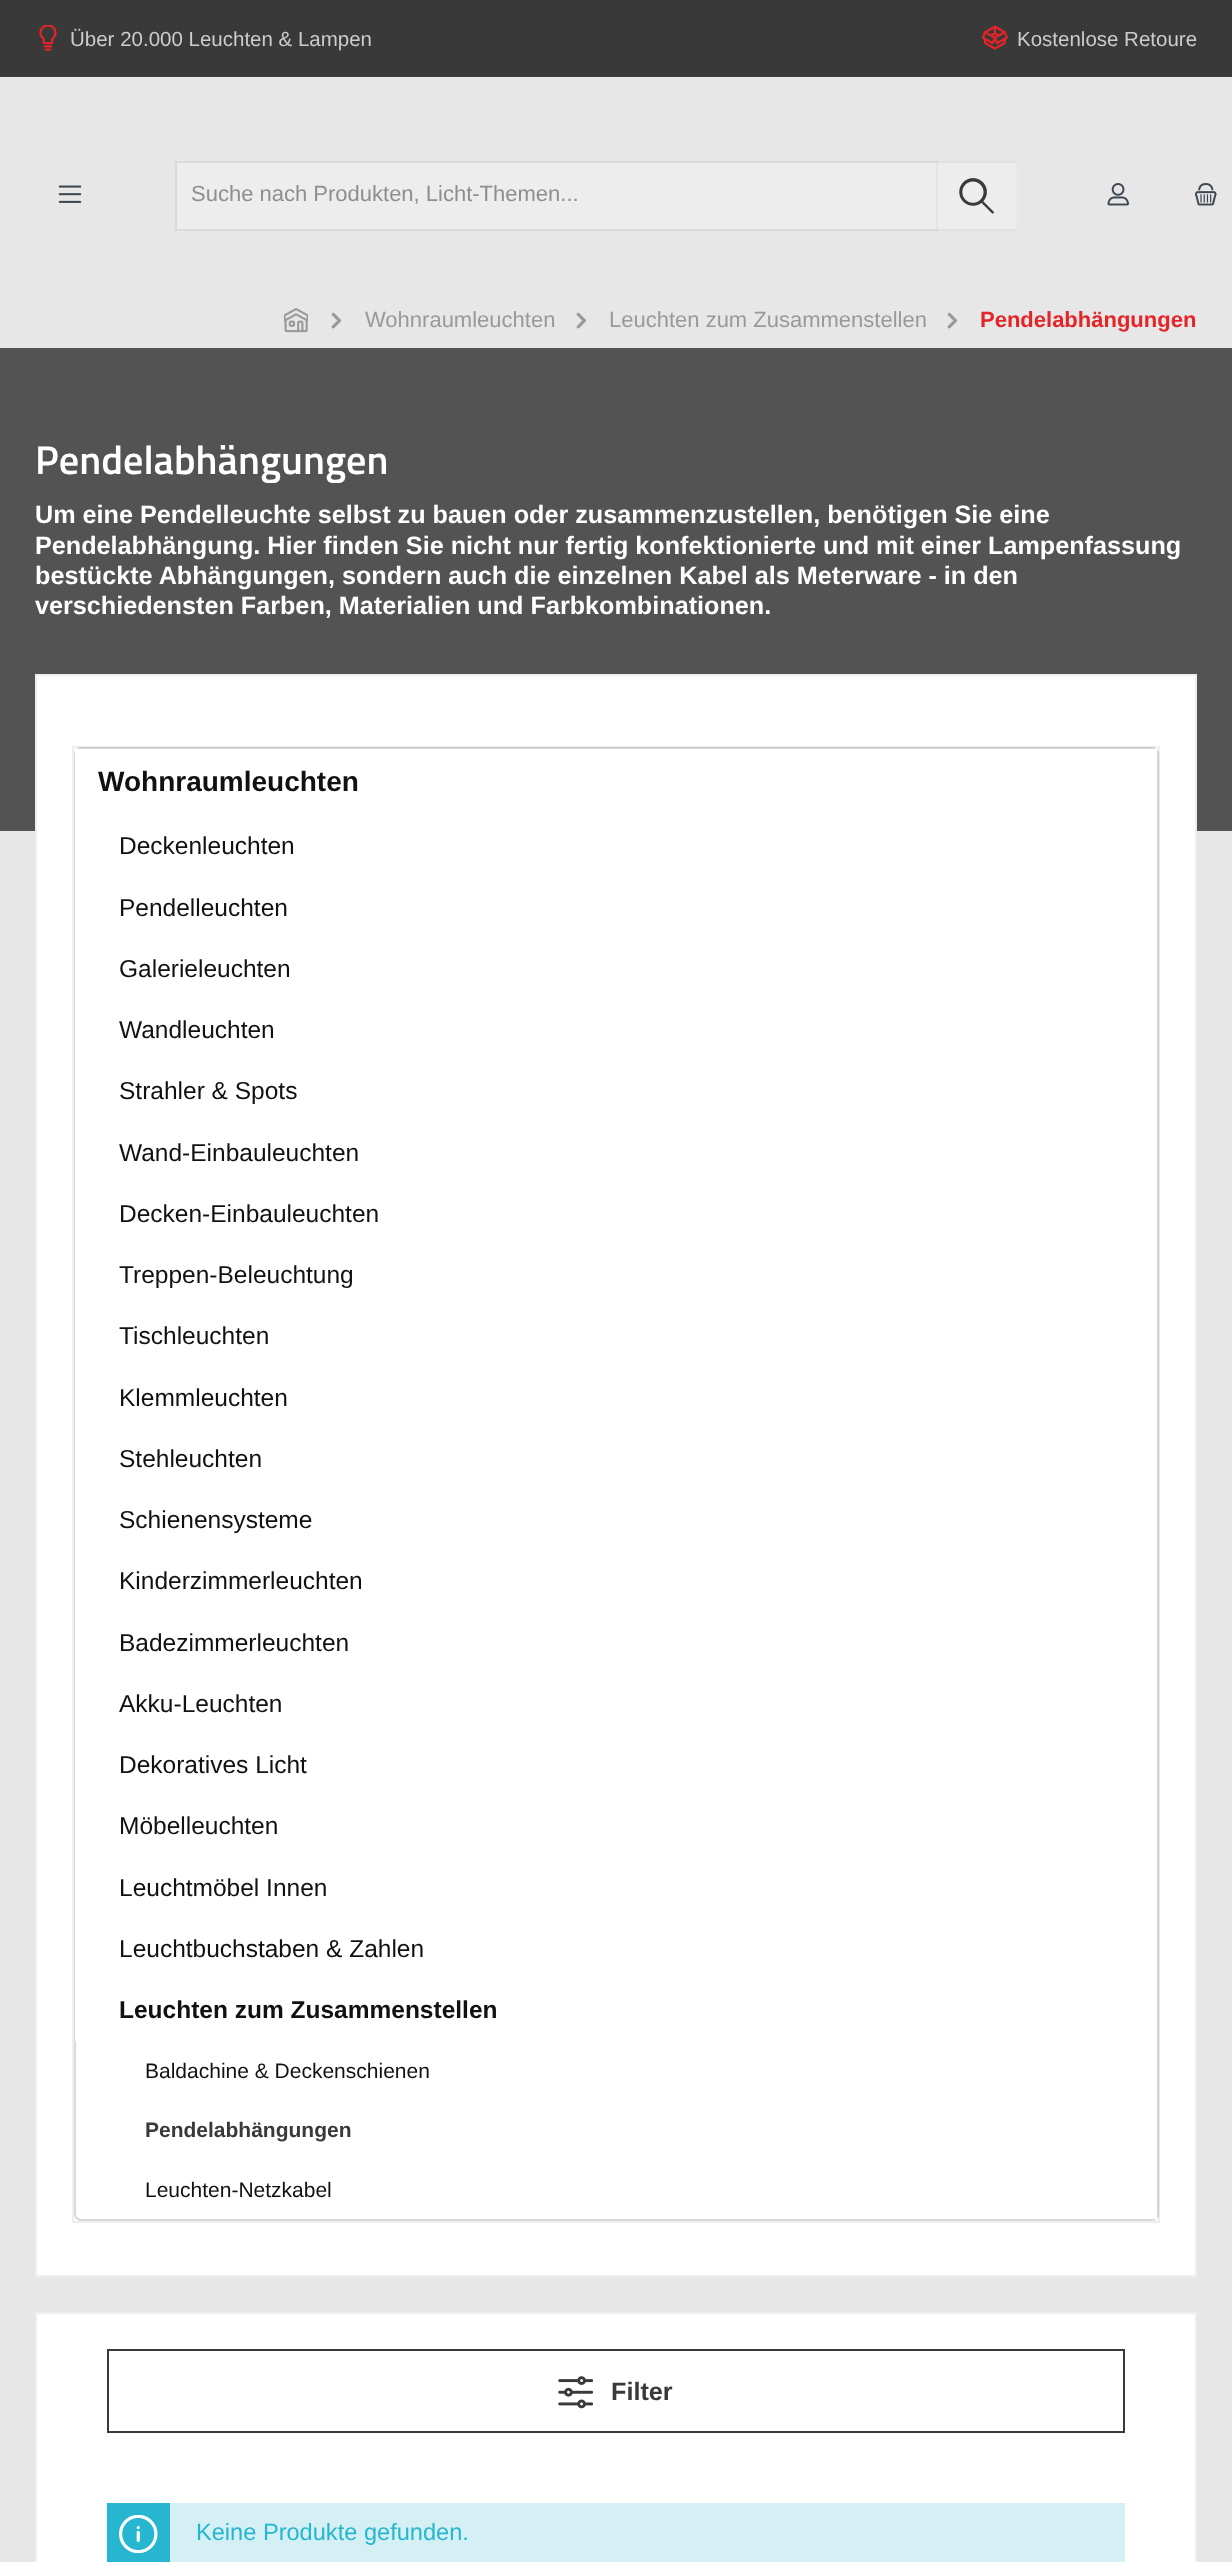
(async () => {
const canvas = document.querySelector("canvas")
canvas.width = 1232
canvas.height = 2562
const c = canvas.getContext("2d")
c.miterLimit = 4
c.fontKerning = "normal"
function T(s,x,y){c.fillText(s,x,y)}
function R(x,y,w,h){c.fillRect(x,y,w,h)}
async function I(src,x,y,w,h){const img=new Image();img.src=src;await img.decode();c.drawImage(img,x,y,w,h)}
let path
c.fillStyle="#e7e7e7"
R(0,0,1232,2562)
c.fillStyle="#39393a"
R(0,0,1232,77)
await I("1.png",39,25,18,26)
c.font="20.5px Liberation Sans"
c.fillStyle="#ccc"
T("Über 20.000 Leuchten & Lampen",70,46)
await I("2.png",982,25,26,25)
T("Kostenlose Retoure",1017,46)
await I("3.png",58,185,24,18)
c.fillStyle="#ededed"
c.beginPath()
c.rect(176,162,761,68)
c.fill()
c.strokeStyle="#dbdbdb"
c.lineWidth=2
c.stroke()
c.font="22px Liberation Sans"
c.fillStyle="#8e8e8e"
T("Suche nach Produkten, Licht-Themen...",191,201)
c.fillStyle="#ffffff40"
R(936,161,83,70)
c.fillStyle="#0000000d"
path = new Path2D("M936 161h82l-1 2h-81z")
c.fill(path)
path = new Path2D("M1018 161v70l-1-2v-66z")
c.fill(path)
path = new Path2D("M1018 231h-82v-2h81z")
c.fill(path)
await I("4.png",959,178,35,36)
await I("5.png",1107,183,22,23)
await I("6.png",1194,183,23,23)
await I("7.png",284,308,24,25)
await I("8.png",331,312,10,17)
c.fillStyle="#999"
T("Wohnraumleuchten",365,327)
await I("8.png",576,312,10,17)
T("Leuchten zum Zusammenstellen",609,327)
await I("8.png",947,312,10,17)
c.font="bold 22px Liberation Sans"
c.fillStyle="#e52427"
T("Pendelabhängungen",980,327)
c.fillStyle="#535354"
R(0,348,1232,483)
c.save()
c.beginPath()
c.rect(0,348,1232,135)
c.clip()
c.font="600 40.25px Titillium Web"
c.fillStyle="#fff"
T("Pendelabhängungen",35,474)
c.restore()
c.font="bold 25.2px Liberation Sans"
c.fillStyle="#fff"
T("Um eine Pendelleuchte selbst zu bauen oder zusammenzustellen, benötigen Sie eine",35,523)
T("Pendelabhängung. Hier finden Sie nicht nur fertig konfektionierte und mit einer Lampenfassung",35,554)
T("bestückte Abhängungen, sondern auch die einzelnen Kabel als Meterware - in den",35,584)
T("verschiedensten Farben, Materialien und Farbkombinationen.",35,614)
c.beginPath()
c.rect(36,675,1160,1601)
c.fill()
c.strokeStyle="#eee"
c.stroke()
c.strokeRect(73,747,1086,1475)
c.beginPath()
c.roundRect(75,748,1083,1472,6)
c.strokeStyle="#00000026"
c.stroke()
R(75,749,1082,67)
c.font="bold 28px Liberation Sans"
c.fillStyle="#111"
T("Wohnraumleuchten",98,791)
c.fillStyle="#fff"
R(75,816,1,1225)
c.font="24.5px Liberation Sans"
c.fillStyle="#111"
T("Deckenleuchten",119,854)
T("Pendelleuchten",119,916)
T("Galerieleuchten",119,977)
T("Wandleuchten",119,1038)
T("Strahler & Spots",119,1099)
T("Wand-Einbauleuchten",119,1161)
T("Decken-Einbauleuchten",119,1222)
T("Treppen-Beleuchtung",119,1283)
T("Tischleuchten",119,1344)
T("Klemmleuchten",119,1406)
T("Stehleuchten",119,1467)
T("Schienensysteme",119,1528)
T("Kinderzimmerleuchten",119,1589)
T("Badezimmerleuchten",119,1651)
T("Akku-Leuchten",119,1712)
T("Dekoratives Licht",119,1773)
T("Möbelleuchten",119,1834)
T("Leuchtmöbel Innen",119,1896)
T("Leuchtbuchstaben & Zahlen",119,1957)
c.font="bold 24.5px Liberation Sans"
T("Leuchten zum Zusammenstellen",119,2018)
c.font="21px Liberation Sans"
T("Baldachine & Deckenschienen",145,2078)
c.font="bold 21px Liberation Sans"
c.fillStyle="#39393a"
T("Pendelabhängungen",145,2137)
c.fillStyle="#fff"
R(1153,2215,4,4)
c.font="21px Liberation Sans"
c.fillStyle="#111"
T("Leuchten-Netzkabel",145,2197)
c.fillStyle="#fff"
c.beginPath()
c.rect(36,2313,1160,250)
c.fill()
c.strokeStyle="#eee"
c.stroke()
c.strokeStyle="#39393a"
c.strokeRect(108,2350,1016,82)
await I("9.png",558,2376,35,33)
c.font="bold 25.2px Liberation Sans"
c.fillStyle="#39393a"
T("Filter",611,2400)
c.fillStyle="#26b6cf"
R(107,2503,63,59)
await I("10.png",119,2515,39,38)
c.fillStyle="#d4f0f5"
R(170,2503,955,59)
c.font="23.6px Liberation Sans"
c.fillStyle="#26b6cf"
T("Keine Produkte gefunden.",196,2540)
})()
